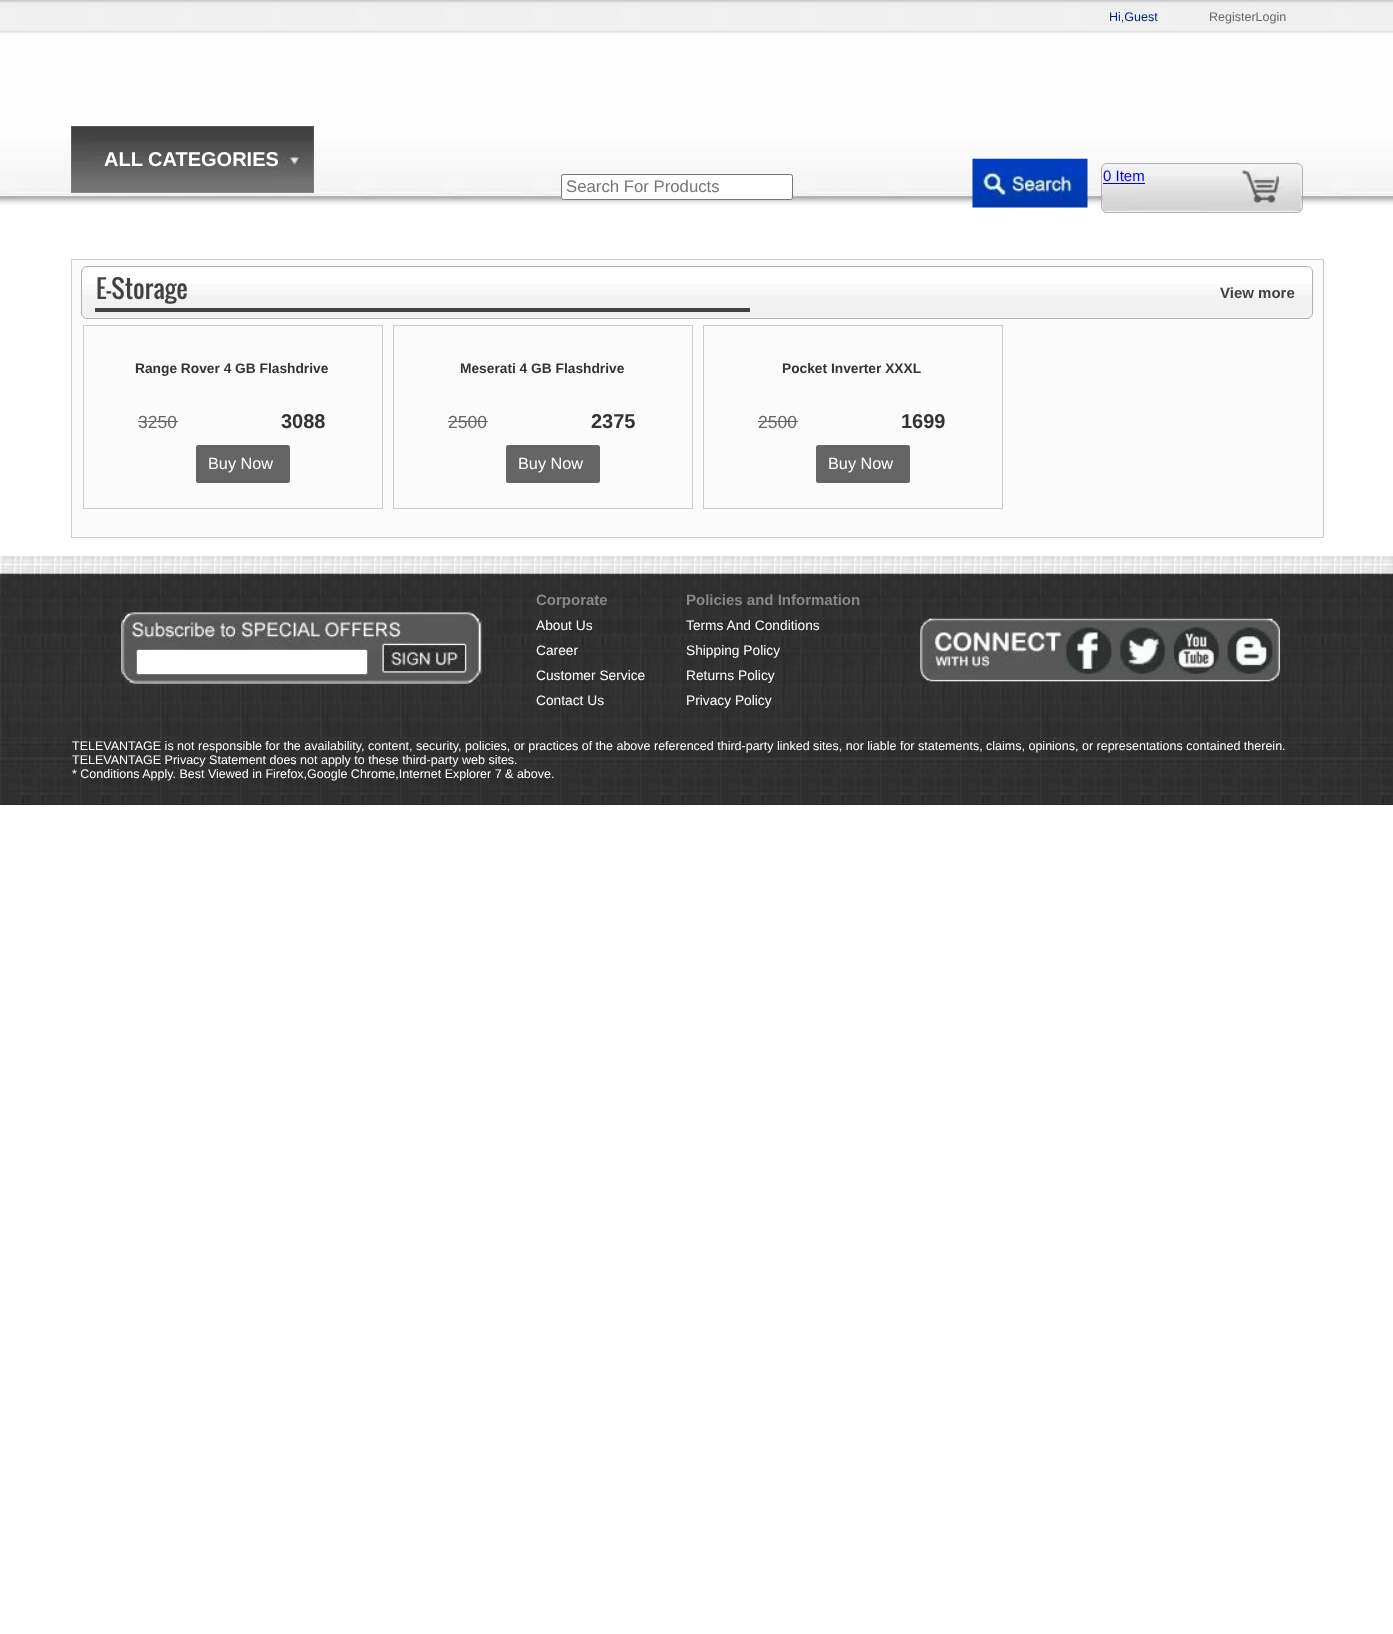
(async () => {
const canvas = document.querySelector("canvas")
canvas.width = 1393
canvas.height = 1634
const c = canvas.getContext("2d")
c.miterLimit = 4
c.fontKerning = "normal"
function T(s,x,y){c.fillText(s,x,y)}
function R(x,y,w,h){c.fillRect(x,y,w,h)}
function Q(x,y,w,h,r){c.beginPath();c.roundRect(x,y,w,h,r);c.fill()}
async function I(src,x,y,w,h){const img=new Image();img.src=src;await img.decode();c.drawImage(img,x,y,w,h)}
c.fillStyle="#fff"
R(0,0,1393,1634)
await I("1.png",0,0,1393,205)
c.font="12.5px Liberation Sans"
c.fillStyle="#022577"
T("Hi,Guest",1109,21)
c.fillStyle="#666"
T("RegisterLogin",1209,21)
c.fillStyle="#999"
R(71,126,243,67)
await I("2.png",71,126,243,67)
c.font="bold 20px Liberation Sans"
c.fillStyle="#fff"
T("ALL CATEGORIES",104,166)
await I("3.png",1102,164,200,48)
c.beginPath()
c.roundRect(1101.5,163.5,201,49,5.5)
c.strokeStyle="#b1aeae"
c.stroke()
c.font="15px Liberation Sans"
c.fillStyle="#00e"
T("0 Item",1103,181)
R(1103,183,42,1)
c.fillStyle="#fff"
c.beginPath()
c.roundRect(561.5,174.5,231,25,2)
c.fill()
c.strokeStyle="#767676"
c.stroke()
c.font="16.75px Liberation Sans"
c.fillStyle="#757575"
T("Search For Products",566,192)
await I("4.png",972,158,116,50)
c.fillStyle="#fbfbfb"
c.beginPath()
c.rect(71.5,259.5,1252,278)
c.fill()
c.strokeStyle="#ccc"
c.stroke()
c.fillStyle="#fff"
Q(81,266,1232,53,6)
await I("5.png",81,284,1232,34)
c.beginPath()
c.roundRect(81.5,266.5,1231,52,5.5)
c.strokeStyle="#b1aeae"
c.stroke()
c.fillStyle="#414141"
R(95,308,655,4)
c.font="25px Oswald"
T("E-Storage",96,299)
c.font="bold 15px Liberation Sans"
T("View more",1220,298)
c.strokeStyle="#ccc"
c.strokeRect(83.5,325.5,299,183)
c.font="bold 13.75px Liberation Sans"
c.fillStyle="#333"
T("Range Rover 4 GB Flashdrive",135,373)
c.font="17.5px Liberation Sans"
c.fillStyle="#666"
T("3250",138,428)
R(138,421,40,1)
c.font="bold 20px Liberation Sans"
c.fillStyle="#333"
T("3088",281,428)
c.fillStyle="#656565"
Q(196,445,94,38,2.5)
c.font="16.25px Liberation Sans"
c.fillStyle="#fff"
T("Buy Now",208,469)
c.strokeRect(393.5,325.5,299,183)
c.font="bold 13.75px Liberation Sans"
c.fillStyle="#333"
T("Meserati 4 GB Flashdrive",460,373)
c.font="17.5px Liberation Sans"
c.fillStyle="#666"
T("2500",448,428)
R(448,421,40,1)
c.font="bold 20px Liberation Sans"
c.fillStyle="#333"
T("2375",591,428)
c.fillStyle="#656565"
Q(506,445,94,38,2.5)
c.font="16.25px Liberation Sans"
c.fillStyle="#fff"
T("Buy Now",518,469)
c.strokeRect(703.5,325.5,299,183)
c.font="bold 13.75px Liberation Sans"
c.fillStyle="#333"
T("Pocket Inverter XXXL",782,373)
c.font="17.5px Liberation Sans"
c.fillStyle="#666"
T("2500",758,428)
R(758,421,40,1)
c.font="bold 20px Liberation Sans"
c.fillStyle="#333"
T("1699",901,428)
c.fillStyle="#656565"
Q(816,445,94,38,2.5)
c.font="16.25px Liberation Sans"
c.fillStyle="#fff"
T("Buy Now",828,469)
await I("6.png",0,556,1393,249)
await I("7.png",121,612,361,72)
await I("8.png",121,612,361,72)
c.beginPath()
c.roundRect(136.5,649.5,231,25,2)
c.fill()
c.strokeStyle="#767676"
c.stroke()
await I("9.png",382,643,85,30)
c.font="bold 15px Liberation Sans"
c.fillStyle="#888"
T("Corporate",536,605)
c.font="13.75px Liberation Sans"
c.fillStyle="#fff"
T("About Us",536,630)
T("Career",536,655)
T("Customer Service",536,680)
T("Contact Us",536,705)
c.font="bold 15px Liberation Sans"
c.fillStyle="#888"
T("Policies and Information",686,605)
c.font="13.75px Liberation Sans"
c.fillStyle="#fff"
T("Terms And Conditions",686,630)
T("Shipping Policy",686,655)
T("Returns Policy",686,680)
T("Privacy Policy",686,705)
await I("10.png",920,618,360,64)
await I("11.png",1065,626,48,48)
await I("12.png",1119,626,47,48)
await I("13.png",1172,626,48,48)
await I("14.png",1226,626,48,48)
c.font="12.5px Liberation Sans"
T("TELEVANTAGE is not responsible for the availability, content, security, policies, or practices of the above referenced third-party linked sites, nor liable for statements, claims, opinions, or representations contained therein.",72,750)
T("TELEVANTAGE Privacy Statement does not apply to these third-party web sites.",72,764)
T("* Conditions Apply. Best Viewed in Firefox,Google Chrome,Internet Explorer 7 & above.",72,778)
})()
